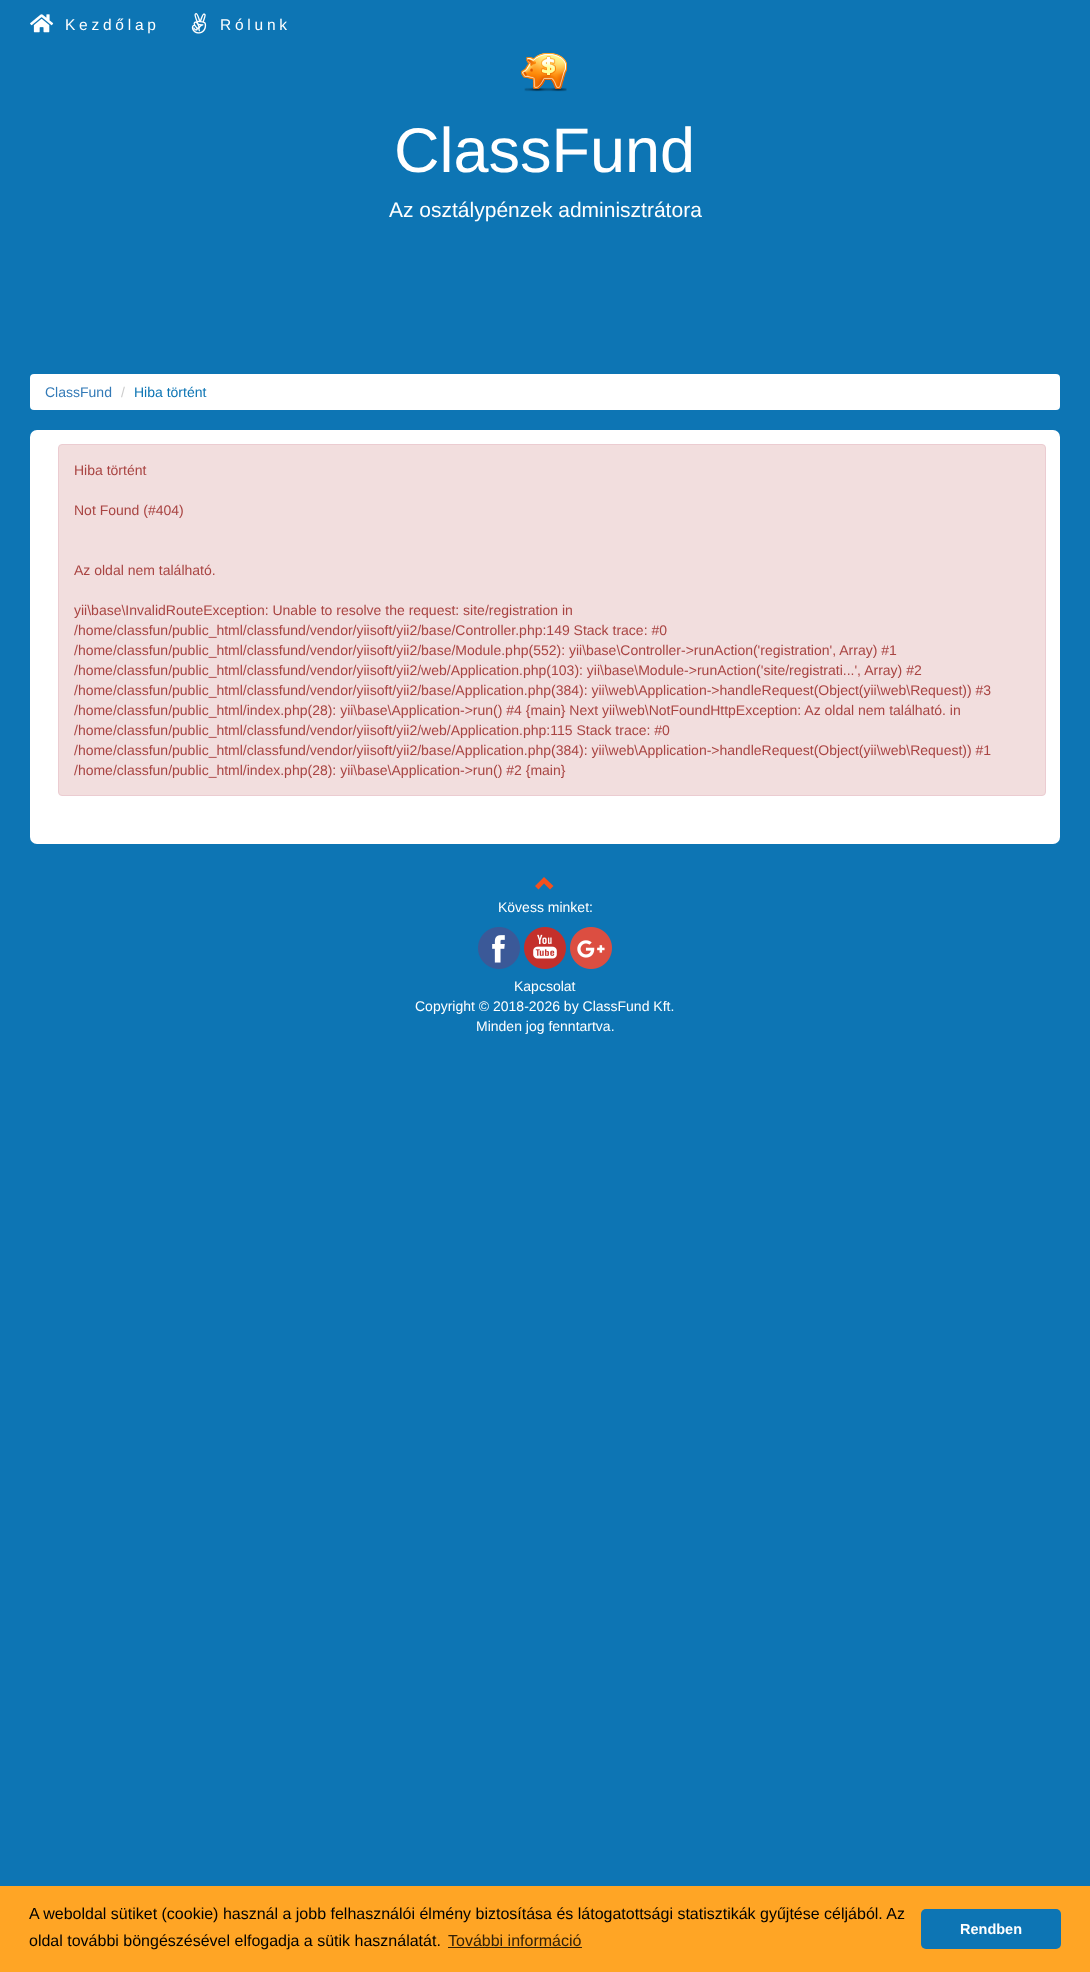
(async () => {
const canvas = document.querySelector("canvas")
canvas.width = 1090
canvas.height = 1972
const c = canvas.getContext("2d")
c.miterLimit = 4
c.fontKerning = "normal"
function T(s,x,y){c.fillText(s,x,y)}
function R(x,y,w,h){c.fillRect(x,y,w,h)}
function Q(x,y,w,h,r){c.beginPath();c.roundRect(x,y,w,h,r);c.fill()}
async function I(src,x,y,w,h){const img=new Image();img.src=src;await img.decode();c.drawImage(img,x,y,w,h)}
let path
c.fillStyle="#0d75b4"
R(0,0,1090,1972)
await I("1.png",30,14,24,19)
c.letterSpacing="3.75px"
c.font="15.5px Liberation Sans"
c.fillStyle="#fff"
T("Kezdőlap",65,30)
await I("2.png",191,13,16,21)
T("Rólunk",220,30)
await I("3.png",521,53,46,39)
c.letterSpacing="0px"
c.font="63px Liberation Sans"
T("ClassFund",394,172)
c.font="21px Liberation Sans"
T("Az osztálypénzek adminisztrátora",389,217)
Q(30,374,1030,36,4)
c.font="14px Liberation Sans"
c.fillStyle="#337ab7"
T("ClassFund",45,397)
c.fillStyle="#ccc"
T("/",121,397)
c.fillStyle="#0d75b4"
T("Hiba történt",134,397)
c.fillStyle="#fff"
Q(30,430,1030,414,7)
c.fillStyle="#f2dede"
c.beginPath()
c.roundRect(58.5,444.5,987,351,3.5)
c.fill()
c.strokeStyle="#ebccd1"
c.stroke()
c.fillStyle="#a94442"
T("Hiba történt",74,475)
T("Not Found (#404)",74,515)
T("Az oldal nem található.",74,575)
T("yii\\base\\InvalidRouteException: Unable to resolve the request: site/registration in",74,615)
T("/home/classfun/public_html/classfund/vendor/yiisoft/yii2/base/Controller.php:149 Stack trace: #0",74,635)
T("/home/classfun/public_html/classfund/vendor/yiisoft/yii2/base/Module.php(552): yii\\base\\Controller->runAction('registration', Array) #1",74,655)
T("/home/classfun/public_html/classfund/vendor/yiisoft/yii2/web/Application.php(103): yii\\base\\Module->runAction('site/registrati...', Array) #2",74,675)
T("/home/classfun/public_html/classfund/vendor/yiisoft/yii2/base/Application.php(384): yii\\web\\Application->handleRequest(Object(yii\\web\\Request)) #3",74,695)
T("/home/classfun/public_html/index.php(28): yii\\base\\Application->run() #4 {main} Next yii\\web\\NotFoundHttpException: Az oldal nem található. in",74,715)
T("/home/classfun/public_html/classfund/vendor/yiisoft/yii2/web/Application.php:115 Stack trace: #0",74,735)
T("/home/classfun/public_html/classfund/vendor/yiisoft/yii2/base/Application.php(384): yii\\web\\Application->handleRequest(Object(yii\\web\\Request)) #1",74,755)
T("/home/classfun/public_html/index.php(28): yii\\base\\Application->run() #2 {main}",74,775)
c.fillStyle="#f4511e"
path = new Path2D("M553.5 886l-3.5 3.5l-6-6l-5.5 6l-3.5-3.5l9-9z")
c.fill(path)
c.fillStyle="#fff"
T("Kövess minket:",498,912)
await I("4.png",478,927,42,42)
await I("5.png",524,927,42,42)
await I("6.png",570,927,42,42)
T("Kapcsolat",514,991)
T("Copyright © 2018-2026 by ClassFund Kft.",415,1011)
T("Minden jog fenntartva.",476,1031)
c.fillStyle="#ffa525"
R(0,1886,1090,86)
c.font="16px Liberation Sans"
c.fillStyle="#000"
T("A weboldal sütiket (cookie) használ a jobb felhasználói élmény biztosítása és látogatottsági statisztikák gyűjtése céljából. Az",29,1919)
T("oldal további böngészésével elfogadja a sütik használatát.",29,1946)
c.fillStyle="#332107"
T("További információ",448,1946)
R(448,1947,134,1)
c.fillStyle="#0d75b4"
Q(921,1909,140,40,5)
c.font="bold 14.5px Liberation Sans"
c.fillStyle="#fff"
T("Rendben",960,1934)
})()
